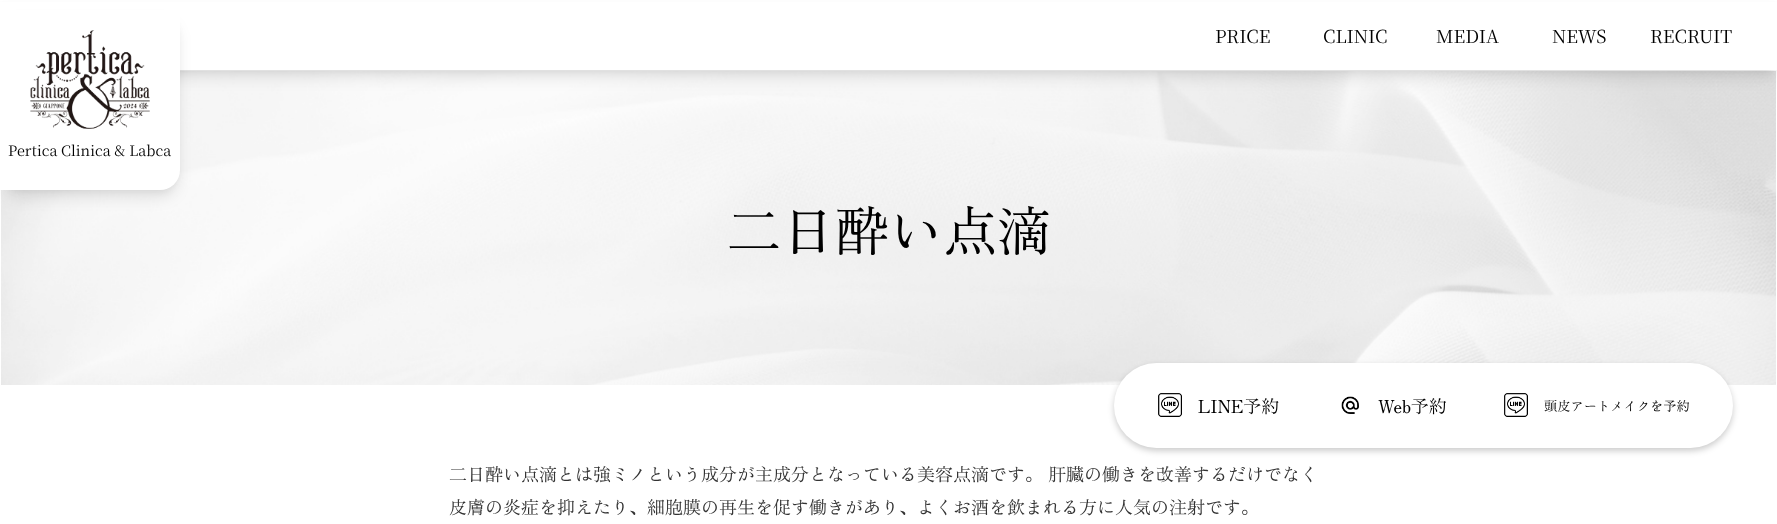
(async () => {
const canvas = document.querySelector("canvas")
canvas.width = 1777
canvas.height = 524
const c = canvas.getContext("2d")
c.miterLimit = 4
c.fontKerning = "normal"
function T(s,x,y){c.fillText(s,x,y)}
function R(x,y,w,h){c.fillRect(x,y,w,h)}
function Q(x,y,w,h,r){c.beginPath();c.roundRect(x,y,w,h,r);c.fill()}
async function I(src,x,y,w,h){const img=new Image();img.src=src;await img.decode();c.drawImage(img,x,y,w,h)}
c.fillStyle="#fff"
R(0,0,1777,524)
await I("2.png",1,71,1775,314)
c.fillStyle="#0000000d"
c.filter="blur(3px)"
c.beginPath()
c.rect(2,6,1773,66)
c.fill()
c.filter="none"
c.fillStyle="#0000001a"
c.filter="blur(7.5px)"
c.beginPath()
c.rect(3,13,1771,64)
c.fill()
c.filter="none"
c.fillStyle="#fff"
R(0,2,1777,68)
c.font="200 18px Noto Serif JP"
c.fillStyle="#000"
T("PRICE",1215,43)
T("CLINIC",1323,43)
T("MEDIA",1436,43)
T("NEWS",1552,43)
T("RECRUIT",1650,43)
c.fillStyle="#0000000d"
c.filter="blur(3px)"
c.beginPath()
c.roundRect(2,16,176,176,18)
c.fill()
c.filter="none"
c.fillStyle="#0000001a"
c.filter="blur(7.5px)"
c.beginPath()
c.roundRect(3,23,174,174,17)
c.fill()
c.filter="none"
c.fillStyle="#fff"
c.beginPath()
c.roundRect(0,10,180,180,[0,0,20,0])
c.fill()
await I("1.png",30,30,120,99)
c.font="200 14.4px Noto Serif JP"
c.fillStyle="#000"
T("Pertica Clinica & Labca",8,156)
c.font="54px Zen Old Mincho"
T("二日酔い点滴",727,251)
c.fillStyle="#00000033"
c.filter="blur(3px)"
c.beginPath()
c.roundRect(1114,366,619,85,42.5)
c.fill()
c.filter="none"
c.fillStyle="#fff"
Q(1114,363,619,85,42.5)
await I("3.png",1158,393,24,24)
c.font="18px Zen Old Mincho"
c.fillStyle="#000"
T("LINE予約",1198,413)
await I("4.png",1341,396,18,18)
T("Web予約",1378,413)
await I("5.png",1504,393,24,24)
c.font="13.25px Zen Old Mincho"
T("頭皮アートメイクを予約",1544,411)
c.font="18px Zen Old Mincho"
c.fillStyle="#333"
T("二日酔い点滴とは強ミノという成分が主成分となっている美容点滴です。 肝臓の働きを改善するだけでなく",449,481)
T("皮膚の炎症を抑えたり、細胞膜の再生を促す働きがあり、よくお酒を飲まれる方に人気の注射です。",449,514)
})()
